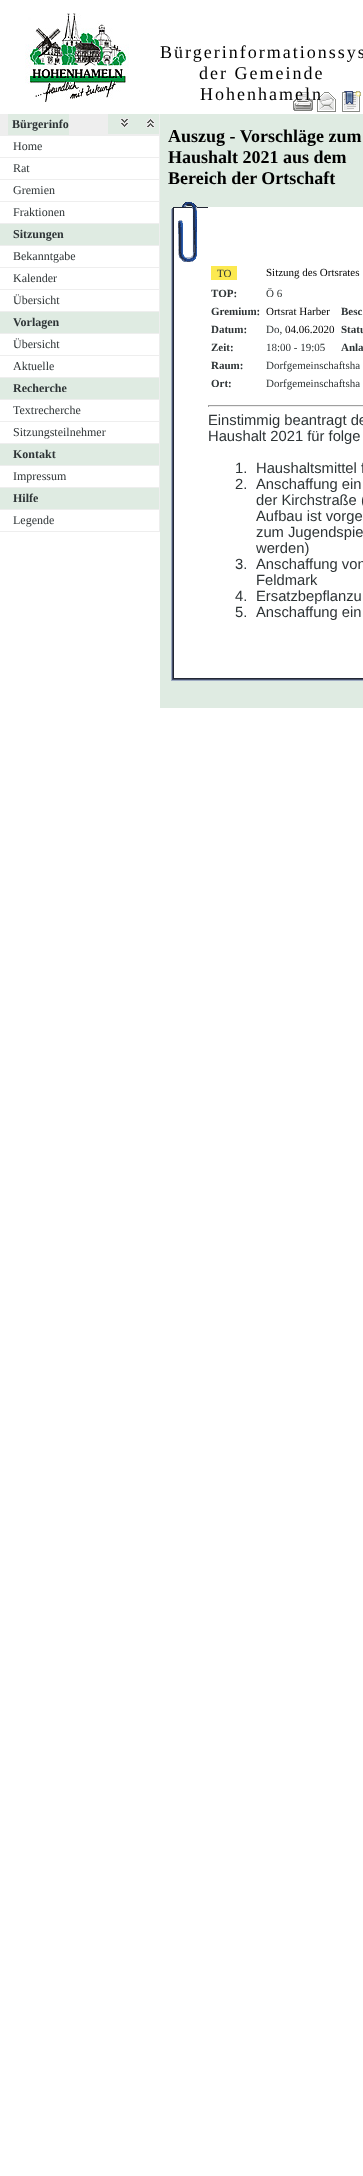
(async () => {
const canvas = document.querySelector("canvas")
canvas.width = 363
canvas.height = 2176
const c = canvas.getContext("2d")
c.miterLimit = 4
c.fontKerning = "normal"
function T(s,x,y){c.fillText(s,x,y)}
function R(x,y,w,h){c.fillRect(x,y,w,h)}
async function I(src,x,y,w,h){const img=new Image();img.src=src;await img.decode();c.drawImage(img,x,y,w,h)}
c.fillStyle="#fff"
R(0,0,363,2176)
c.fillStyle="#eee"
R(0,114,160,418)
await I("1.png",25,13,104,89)
c.fillStyle="#dfebe2"
R(8,114,61,21)
c.font="bold 12px Liberation Serif"
c.fillStyle="#2e3436"
T("Bürgerinfo",12,128)
c.fillStyle="#dfebe2"
R(108,114,51,20)
await I("2.png",120,118,9,10)
await I("3.png",146,118,9,10)
c.fillStyle="#fff"
R(0,136,159,21)
c.font="12px Liberation Serif"
c.fillStyle="#2e3436"
T("Home",13,150)
c.fillStyle="#fff"
R(0,158,159,21)
c.fillStyle="#2e3436"
T("Rat",13,172)
c.fillStyle="#fff"
R(0,180,159,21)
c.fillStyle="#2e3436"
T("Gremien",13,194)
c.fillStyle="#fff"
R(0,202,159,21)
c.fillStyle="#2e3436"
T("Fraktionen",13,216)
c.fillStyle="#dfebe2"
R(0,224,159,21)
c.font="bold 12px Liberation Serif"
c.fillStyle="#2e3436"
T("Sitzungen",13,238)
c.fillStyle="#fff"
R(0,246,159,21)
c.font="12px Liberation Serif"
c.fillStyle="#2e3436"
T("Bekanntgabe",13,260)
c.fillStyle="#fff"
R(0,268,159,21)
c.fillStyle="#2e3436"
T("Kalender",13,282)
c.fillStyle="#fff"
R(0,290,159,21)
c.fillStyle="#2e3436"
T("Übersicht",13,304)
c.fillStyle="#dfebe2"
R(0,312,159,21)
c.font="bold 12px Liberation Serif"
c.fillStyle="#2e3436"
T("Vorlagen",13,326)
c.fillStyle="#fff"
R(0,334,159,21)
c.font="12px Liberation Serif"
c.fillStyle="#2e3436"
T("Übersicht",13,348)
c.fillStyle="#fff"
R(0,356,159,21)
c.fillStyle="#2e3436"
T("Aktuelle",13,370)
c.fillStyle="#dfebe2"
R(0,378,159,21)
c.font="bold 12px Liberation Serif"
c.fillStyle="#2e3436"
T("Recherche",13,392)
c.fillStyle="#fff"
R(0,400,159,21)
c.font="12px Liberation Serif"
c.fillStyle="#2e3436"
T("Textrecherche",13,414)
c.fillStyle="#fff"
R(0,422,159,21)
c.fillStyle="#2e3436"
T("Sitzungsteilnehmer",13,436)
c.fillStyle="#dfebe2"
R(0,444,159,21)
c.font="bold 12px Liberation Serif"
c.fillStyle="#2e3436"
T("Kontakt",13,458)
c.fillStyle="#fff"
R(0,466,159,21)
c.font="12px Liberation Serif"
c.fillStyle="#2e3436"
T("Impressum",13,480)
c.fillStyle="#dfebe2"
R(0,488,159,21)
c.font="bold 12px Liberation Serif"
c.fillStyle="#2e3436"
T("Hilfe",13,502)
c.fillStyle="#fff"
R(0,510,159,21)
c.font="12px Liberation Serif"
c.fillStyle="#2e3436"
T("Legende",13,524)
c.fillStyle="#dfebe2"
R(160,114,203,594)
c.letterSpacing="2px"
c.font="18px Liberation Serif"
c.fillStyle="#000"
T("Bürgerinformationssys",160,58)
T("der Gemeinde",199,79)
await I("4.png",293,92,20,19)
await I("5.png",317,92,19,20)
T("Hohenhameln",200,100)
await I("6.png",342,91,19,21)
c.letterSpacing="0px"
c.font="bold 18px Liberation Serif"
T("Auszug - Vorschläge zum",168,142)
T("Haushalt 2021 aus dem",168,163)
T("Bereich der Ortschaft",168,184)
await I("7.png",171,202,37,61)
c.fillStyle="#fff"
R(208,207,155,413)
await I("8.png",171,263,37,357)
c.fillStyle="#fce94f"
R(211,266,26,14)
c.font="11px Liberation Serif"
c.fillStyle="#2e3436"
T("TO",217,277)
c.fillStyle="#000"
T("Sitzung des Ortsrates",266,276)
c.font="bold 11px Liberation Serif"
c.fillStyle="#2e3436"
T("TOP:",211,297)
c.font="11px Liberation Serif"
T("Ö 6",266,297)
c.font="bold 11px Liberation Serif"
T("Gremium:",211,315)
c.font="11px Liberation Serif"
c.fillStyle="#000"
T("Ortsrat Harber",266,315)
c.font="bold 11px Liberation Serif"
c.fillStyle="#2e3436"
T("Besc",341,315)
T("Datum:",211,333)
c.font="11px Liberation Serif"
T("Do,",266,333)
c.fillStyle="#000"
T("04.06.2020",285,333)
c.font="bold 11px Liberation Serif"
c.fillStyle="#2e3436"
T("Statu",341,333)
T("Zeit:",211,351)
c.font="11px Liberation Serif"
T("18:00 - 19:05",266,351)
c.font="bold 11px Liberation Serif"
T("Anla",341,351)
T("Raum:",211,369)
c.font="11px Liberation Serif"
T("Dorfgemeinschaftsha",266,369)
c.font="bold 11px Liberation Serif"
T("Ort:",211,387)
c.font="11px Liberation Serif"
T("Dorfgemeinschaftsha",266,387)
c.fillStyle="#9f9f9f"
R(208,405,155,1)
c.fillStyle="#eee"
R(208,406,155,1)
c.fillStyle="#9f9f9f"
R(208,405,1,2)
c.font="14.75px Liberation Sans"
c.fillStyle="#2e3436"
T("Einstimmig beantragt de",208,425)
T("Haushalt 2021 für folge",208,441)
T("1.",235,473)
T("Haushaltsmittel f",256,473)
T("2.",235,489)
T("Anschaffung ein",256,489)
T("der Kirchstraße (",256,505)
T("Aufbau ist vorge",256,521)
T("zum Jugendspie",256,537)
T("werden)",256,553)
T("3.",235,569)
T("Anschaffung von",256,569)
T("Feldmark",256,585)
T("4.",235,601)
T("Ersatzbepflanzu",256,601)
T("5.",235,617)
await I("10.png",208,620,155,61)
T("Anschaffung ein",256,617)
await I("9.png",171,620,37,61)
})()
